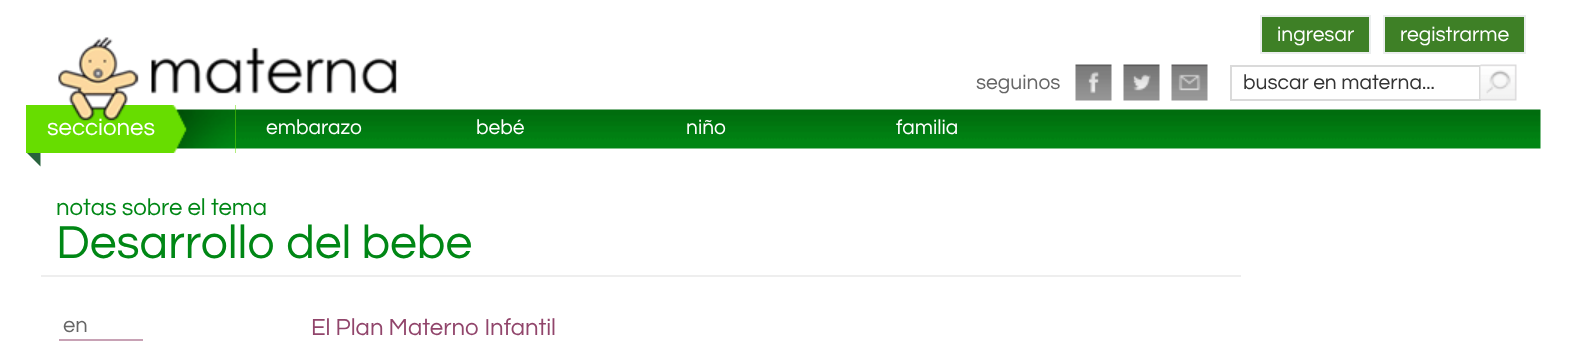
(async () => {
const canvas = document.querySelector("canvas")
canvas.width = 1581
canvas.height = 341
const c = canvas.getContext("2d")
c.miterLimit = 4
c.fontKerning = "normal"
function T(s,x,y){c.fillText(s,x,y)}
function R(x,y,w,h){c.fillRect(x,y,w,h)}
async function I(src,x,y,w,h){const img=new Image();img.src=src;await img.decode();c.drawImage(img,x,y,w,h)}
let path
c.fillStyle="#fff"
R(0,0,1581,341)
await I("6.png",236,109,1305,40)
c.fillStyle="#67dd00"
R(26,105,210,48)
await I("7.png",172,105,64,48)
c.font="24px Questrial"
c.fillStyle="#fff"
T("secciones",47,135)
c.font="21px Questrial"
T("embarazo",266,134)
await I("1.png",58,37,339,84)
c.fillStyle="#3e8026"
c.beginPath()
c.rect(1261,16,109,37)
c.fill()
c.strokeStyle="#ebeeee"
c.lineWidth=2
c.stroke()
c.fillStyle="#fff"
T("ingresar",1277,41)
c.fillStyle="#3e8026"
c.beginPath()
c.rect(1384,16,141,37)
c.fill()
c.stroke()
c.fillStyle="#fff"
T("registrarme",1400,41)
c.fillStyle="#666"
T("seguinos",976,89)
await I("2.png",1075,64,37,37)
await I("3.png",1123,64,37,37)
await I("4.png",1171,64,37,37)
c.strokeStyle="#dadada"
c.strokeRect(1231,66,249,34)
c.fillStyle="#333"
T("buscar en materna...",1243,89)
await I("5.png",1480,64,37,37)
c.fillStyle="#29633d"
path = new Path2D("M27 153h13.5v13.5z")
c.fill(path)
c.fillStyle="#fff"
T("bebé",476,134)
T("niño",686,134)
T("familia",896,134)
c.fillStyle="#eee"
R(41,275,1200,2)
c.font="24px Questrial"
c.fillStyle="#008715"
T("notas sobre el tema",56,215)
c.font="48px Questrial"
T("Desarrollo del bebe",56,258)
c.font="22px Questrial"
c.fillStyle="#666"
T("en",63,332)
c.fillStyle="#c8a2b5"
R(59,339,84,2)
c.font="24px Questrial"
c.fillStyle="#91456b"
T("El Plan Materno Infantil",311,335)
})()
